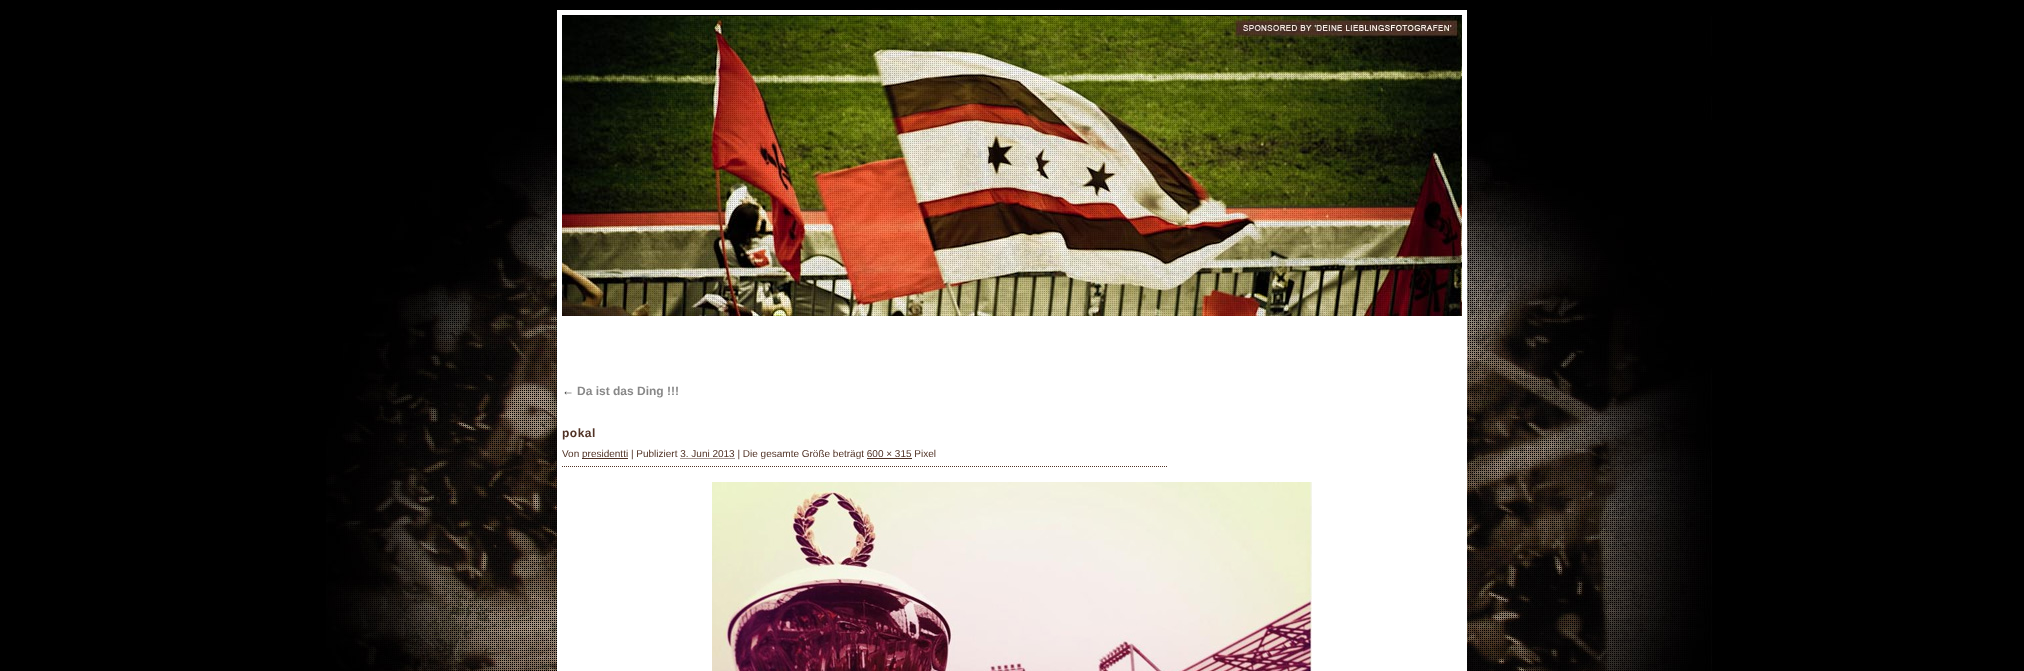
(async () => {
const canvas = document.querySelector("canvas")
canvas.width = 2024
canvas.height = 671
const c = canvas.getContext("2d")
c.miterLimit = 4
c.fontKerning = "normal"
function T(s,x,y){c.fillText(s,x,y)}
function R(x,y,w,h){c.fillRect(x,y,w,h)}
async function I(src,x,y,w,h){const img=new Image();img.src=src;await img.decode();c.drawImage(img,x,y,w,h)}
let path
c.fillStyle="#000"
R(0,0,2024,671)
await I("1.png",326,8,1386,663)
c.fillStyle="#fff"
R(557,10,910,661)
c.fillStyle="#000"
R(562,15,900,1)
await I("2.png",562,16,900,300)
c.font="12px Liberation Sans"
c.fillStyle="#333"
T("←",562,395)
c.font="bold 12px Liberation Sans"
c.fillStyle="#888"
T("Da ist das Ding !!!",577,395)
c.letterSpacing="0.5px"
c.fillStyle="#513326"
T("pokal",562,437)
path = new Path2D("M562 466.5h605")
c.strokeStyle="#513326"
c.setLineDash([1,1])
c.stroke(path)
c.letterSpacing="0px"
c.font="10px Liberation Sans"
T("Von",562,457)
R(582,458,46,1)
T("presidentti | Publiziert 3. Juni 2013 | Die gesamte Größe beträgt 600 × 315 Pixel",582,457)
path = new Path2D("M680.5 458.5h54.5")
c.stroke(path)
R(867,458,45,1)
await I("3.png",712,482,600,189)
})()
